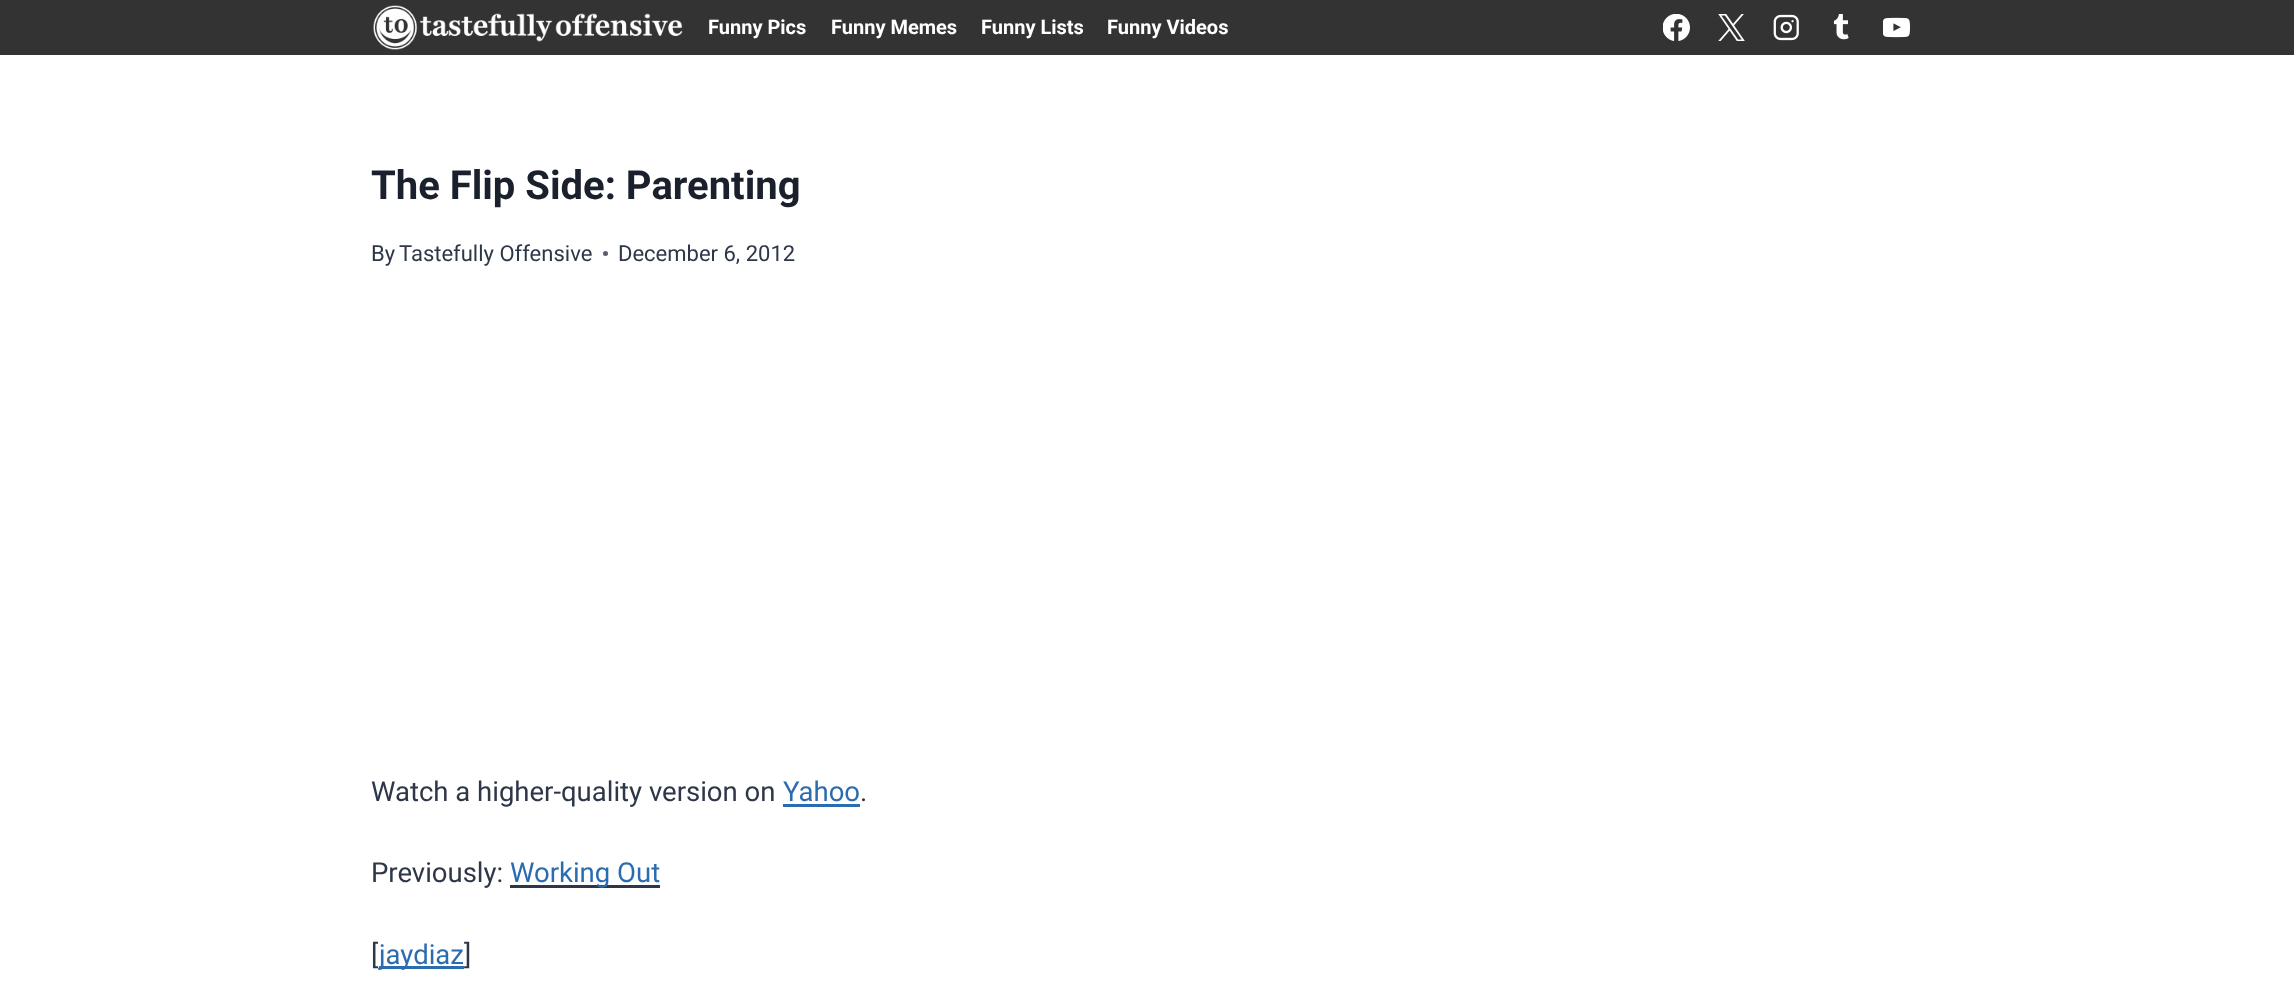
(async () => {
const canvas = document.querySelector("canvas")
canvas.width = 2294
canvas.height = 1002
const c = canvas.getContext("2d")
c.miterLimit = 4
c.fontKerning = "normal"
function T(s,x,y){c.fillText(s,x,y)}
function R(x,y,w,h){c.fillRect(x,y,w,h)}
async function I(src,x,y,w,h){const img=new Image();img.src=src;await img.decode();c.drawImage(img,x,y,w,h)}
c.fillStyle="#fff"
R(0,0,2294,1002)
c.fillStyle="#333"
R(0,0,2294,55)
await I("1.png",373,5,310,45)
c.font="bold 20px Roboto"
c.fillStyle="#fff"
T("Funny Pics",708,34)
T("Funny Memes",831,34)
T("Funny Lists",981,34)
T("Funny Videos",1107,34)
await I("2.png",1663,14,27,27)
await I("3.png",1718,14,27,27)
await I("4.png",1773,14,26,27)
await I("5.png",1833,14,16,26)
await I("6.png",1883,17,27,21)
c.font="bold 40px Roboto"
c.fillStyle="#1a202c"
T("The Flip Side: Parenting",371,199)
c.font="22px Roboto"
c.fillStyle="#2d3748"
T("By",371,261)
T("Tastefully Offensive",399,261)
c.fillStyle="#575f6d"
c.beginPath()
c.arc(605.5,253.5,2.5,0,7)
c.fill()
c.fillStyle="#2d3748"
T("December 6, 2012",618,261)
c.font="27.5px Roboto"
T("Watch a higher-quality version on",371,801)
c.fillStyle="#2b6cb0"
T("Yahoo",783,801)
R(783,804,77,3)
c.fillStyle="#2d3748"
T(".",860,801)
T("Previously:",371,882)
R(510,885,150,3)
c.fillStyle="#2b6cb0"
T("Working Out",510,882)
c.fillStyle="#2d3748"
T("[",371,964)
c.fillStyle="#2b6cb0"
R(379,966,85,3)
T("jaydiaz",379,964)
c.fillStyle="#2d3748"
T("]",464,964)
})()
